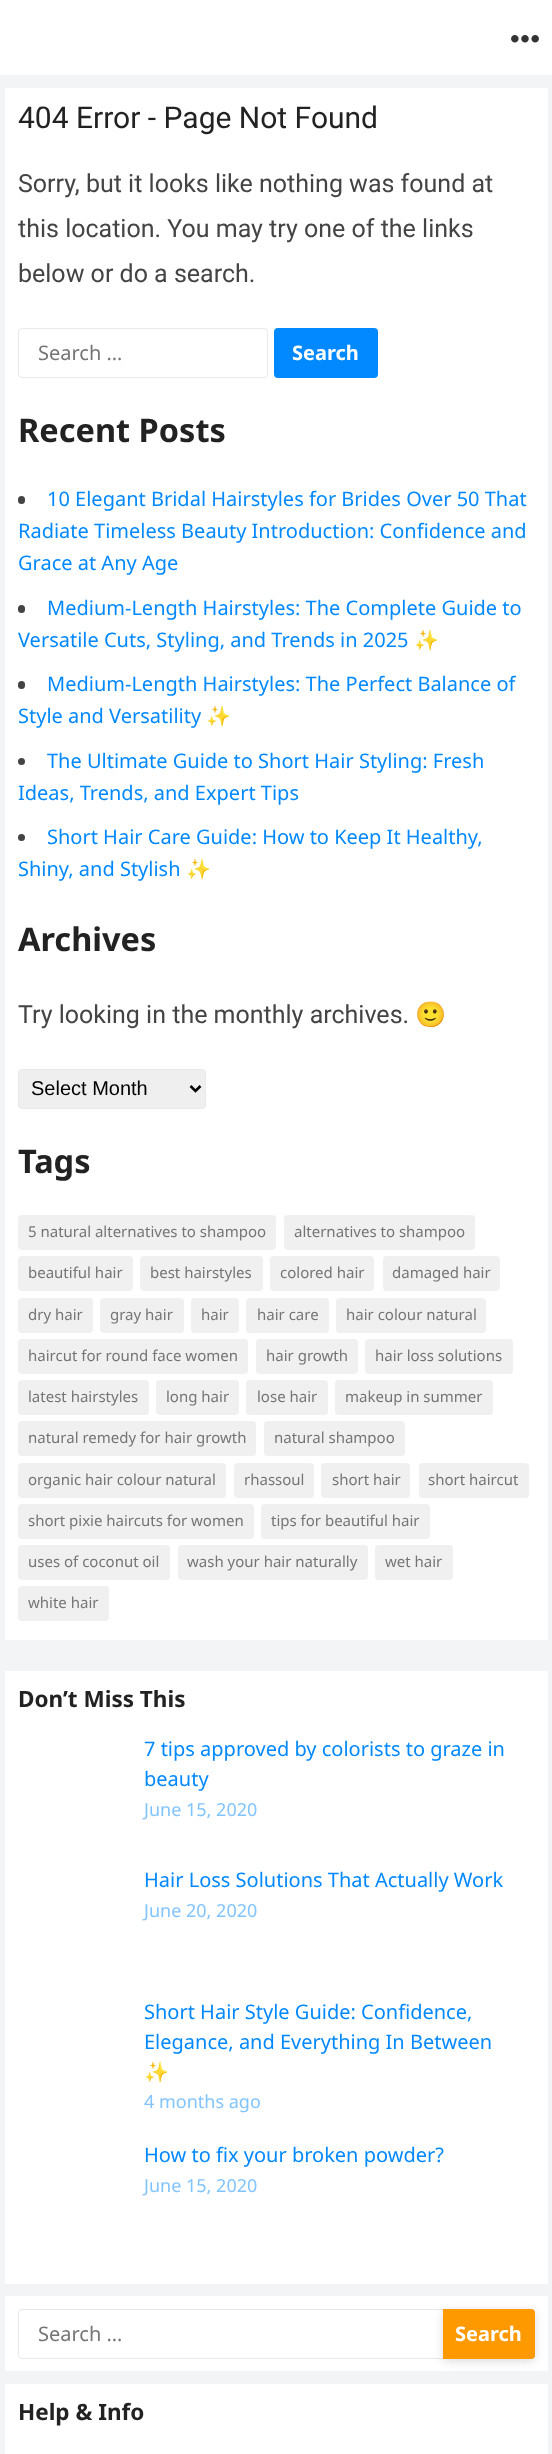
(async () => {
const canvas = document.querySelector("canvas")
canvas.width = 552
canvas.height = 2454
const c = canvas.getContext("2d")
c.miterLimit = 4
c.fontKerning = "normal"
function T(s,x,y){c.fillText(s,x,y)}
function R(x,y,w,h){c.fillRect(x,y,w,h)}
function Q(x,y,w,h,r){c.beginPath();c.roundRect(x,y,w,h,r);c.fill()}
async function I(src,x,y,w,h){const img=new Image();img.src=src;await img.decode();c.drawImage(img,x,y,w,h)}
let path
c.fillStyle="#f3f4f5"
R(0,0,552,2454)
c.fillStyle="#fff"
R(0,0,552,75)
await I("1.png",511,35,28,8)
R(5,88,543,1552)
c.font="30px Roboto"
c.fillStyle="#222"
T("404 Error - Page Not Found",18,128)
c.font="25px Roboto"
c.fillStyle="#444"
T("Sorry, but it looks like nothing was found at",18,192)
T("this location. You may try one of the links",18,237)
T("below or do a search.",18,282)
c.beginPath()
c.roundRect(18.5,328.5,249,49,3.5)
c.strokeStyle="#e9e9e9"
c.stroke()
c.font="20px Noto Sans"
c.fillStyle="#757575"
T("Search …",38,360)
c.fillStyle="#0389ff"
Q(274,328,104,50,4)
c.font="bold 20px Noto Sans"
c.fillStyle="#fff"
T("Search",292,360)
c.font="bold 32.5px Noto Sans"
c.fillStyle="#222"
T("Recent Posts",18,442)
c.fillStyle="#444"
Q(18,496,7,8,3.5)
c.font="20px Noto Sans"
c.fillStyle="#0389ff"
T("10 Elegant Bridal Hairstyles for Brides Over 50 That",47,506)
T("Radiate Timeless Beauty Introduction: Confidence and",18,538)
T("Grace at Any Age",18,570)
c.fillStyle="#444"
Q(18,605,7,8,3.5)
c.fillStyle="#0389ff"
T("Medium-Length Hairstyles: The Complete Guide to",47,615)
T("Versatile Cuts, Styling, and Trends in 2025",18,647)
c.font="20px Noto Color Emoji"
T("✨",414,647)
c.fillStyle="#444"
Q(18,681,7,8,3.5)
c.font="20px Noto Sans"
c.fillStyle="#0389ff"
T("Medium-Length Hairstyles: The Perfect Balance of",47,691)
T("Style and Versatility",18,723)
c.font="20px Noto Color Emoji"
T("✨",206,723)
c.fillStyle="#444"
c.beginPath()
c.arc(21.5,761.5,3.5,0,7)
c.fill()
c.font="20px Noto Sans"
c.fillStyle="#0389ff"
T("The Ultimate Guide to Short Hair Styling: Fresh",47,768)
T("Ideas, Trends, and Expert Tips",18,800)
c.fillStyle="#444"
c.beginPath()
c.arc(21.5,837.5,3.5,0,7)
c.fill()
c.fillStyle="#0389ff"
T("Short Hair Care Guide: How to Keep It Healthy,",47,844)
T("Shiny, and Stylish",18,876)
c.font="20px Noto Color Emoji"
T("✨",186,876)
c.font="bold 32.5px Noto Sans"
c.fillStyle="#222"
T("Archives",18,951)
c.font="25px Roboto"
c.fillStyle="#444"
T("Try looking in the monthly archives.",18,1023)
c.font="25px Noto Color Emoji"
T("🙂",415,1023)
c.fillStyle="#efefef"
c.beginPath()
c.roundRect(18.5,1069.5,187,39,3.5)
c.fill()
c.stroke()
path = new Path2D("M190.5 1086l5 5l5-5")
c.strokeStyle="#000"
c.lineWidth=2.5
c.stroke(path)
c.font="20px Liberation Sans"
c.fillStyle="#000"
T("Select Month",31,1095)
c.font="bold 32.5px Noto Sans"
c.fillStyle="#222"
T("Tags",18,1173)
c.fillStyle="#f0f0f0"
Q(18,1215,258,35,4)
c.font="15px Noto Sans"
c.fillStyle="#757575"
T("5 natural alternatives to shampoo",28,1237)
c.fillStyle="#f0f0f0"
Q(284,1215,191,35,4)
c.fillStyle="#757575"
T("alternatives to shampoo",294,1237)
c.fillStyle="#f0f0f0"
Q(18,1256,115,35,4)
c.fillStyle="#757575"
T("beautiful hair",28,1278)
c.fillStyle="#f0f0f0"
Q(140,1256,123,35,4)
c.fillStyle="#757575"
T("best hairstyles",150,1278)
c.fillStyle="#f0f0f0"
Q(270,1256,104,35,4)
c.fillStyle="#757575"
T("colored hair",280,1278)
c.fillStyle="#f0f0f0"
Q(383,1256,117,35,4)
c.fillStyle="#757575"
T("damaged hair",392,1278)
c.fillStyle="#f0f0f0"
Q(18,1298,75,35,4)
c.fillStyle="#757575"
T("dry hair",28,1320)
c.fillStyle="#f0f0f0"
Q(100,1298,84,35,4)
c.fillStyle="#757575"
T("gray hair",110,1320)
c.fillStyle="#f0f0f0"
Q(191,1298,48,35,4)
c.fillStyle="#757575"
T("hair",201,1320)
c.fillStyle="#f0f0f0"
Q(246,1298,83,35,4)
c.fillStyle="#757575"
T("hair care",257,1320)
c.fillStyle="#f0f0f0"
Q(336,1298,150,35,4)
c.fillStyle="#757575"
T("hair colour natural",346,1320)
c.fillStyle="#f0f0f0"
Q(18,1339,230,35,4)
c.fillStyle="#757575"
T("haircut for round face women",28,1361)
c.fillStyle="#f0f0f0"
Q(256,1339,102,35,4)
c.fillStyle="#757575"
T("hair growth",266,1361)
c.fillStyle="#f0f0f0"
Q(365,1339,148,35,4)
c.fillStyle="#757575"
T("hair loss solutions",375,1361)
c.fillStyle="#f0f0f0"
Q(18,1380,131,35,4)
c.fillStyle="#757575"
T("latest hairstyles",28,1402)
c.fillStyle="#f0f0f0"
Q(156,1380,83,35,4)
c.fillStyle="#757575"
T("long hair",166,1402)
c.fillStyle="#f0f0f0"
Q(246,1380,82,35,4)
c.fillStyle="#757575"
T("lose hair",257,1402)
c.fillStyle="#f0f0f0"
Q(335,1380,158,35,4)
c.fillStyle="#757575"
T("makeup in summer",345,1402)
c.fillStyle="#f0f0f0"
Q(18,1421,238,35,4)
c.fillStyle="#757575"
T("natural remedy for hair growth",28,1443)
c.fillStyle="#f0f0f0"
Q(264,1421,141,35,4)
c.fillStyle="#757575"
T("natural shampoo",274,1443)
c.fillStyle="#f0f0f0"
Q(18,1463,208,35,4)
c.fillStyle="#757575"
T("organic hair colour natural",28,1485)
c.fillStyle="#f0f0f0"
Q(234,1463,80,35,4)
c.fillStyle="#757575"
T("rhassoul",244,1485)
c.fillStyle="#f0f0f0"
Q(321,1463,89,35,4)
c.fillStyle="#757575"
T("short hair",332,1485)
c.fillStyle="#f0f0f0"
Q(419,1463,110,35,4)
c.fillStyle="#757575"
T("short haircut",428,1485)
c.fillStyle="#f0f0f0"
Q(18,1504,236,35,4)
c.fillStyle="#757575"
T("short pixie haircuts for women",28,1526)
c.fillStyle="#f0f0f0"
Q(261,1504,169,35,4)
c.fillStyle="#757575"
T("tips for beautiful hair",271,1526)
c.fillStyle="#f0f0f0"
Q(18,1545,152,35,4)
c.fillStyle="#757575"
T("uses of coconut oil",28,1567)
c.fillStyle="#f0f0f0"
Q(178,1545,190,35,4)
c.fillStyle="#757575"
T("wash your hair naturally",187,1567)
c.fillStyle="#f0f0f0"
Q(375,1545,78,35,4)
c.fillStyle="#757575"
T("wet hair",385,1567)
c.fillStyle="#f0f0f0"
Q(18,1586,91,35,4)
c.fillStyle="#757575"
T("white hair",28,1608)
c.fillStyle="#fff"
R(5,1671,543,613)
c.font="bold 22.5px Noto Sans"
c.fillStyle="#222"
T("Don’t Miss This",18,1707)
c.font="20px Noto Sans"
c.fillStyle="#0389ff"
T("7 tips approved by colorists to graze in",144,1756)
T("beauty",144,1786)
c.font="18px Noto Sans"
c.fillStyle="#81c4ff"
T("June 15, 2020",144,1816)
c.font="20px Noto Sans"
c.fillStyle="#0389ff"
T("Hair Loss Solutions That Actually Work",144,1887)
c.font="18px Noto Sans"
c.fillStyle="#81c4ff"
T("June 20, 2020",144,1917)
c.font="20px Noto Sans"
c.fillStyle="#0389ff"
T("Short Hair Style Guide: Confidence,",144,2019)
T("Elegance, and Everything In Between",144,2049)
c.font="20px Noto Color Emoji"
T("✨",144,2079)
c.font="18px Noto Sans"
c.fillStyle="#81c4ff"
T("4 months ago",144,2108)
c.font="20px Noto Sans"
c.fillStyle="#0389ff"
T("How to fix your broken powder?",144,2162)
c.font="18px Noto Sans"
c.fillStyle="#81c4ff"
T("June 15, 2020",144,2192)
c.fillStyle="#fff"
R(5,2296,543,75)
c.beginPath()
c.roundRect(18.5,2309.5,516,49,3.5)
c.strokeStyle="#e9e9e9"
c.lineWidth=1
c.stroke()
c.font="20px Noto Sans"
c.fillStyle="#757575"
T("Search …",38,2341)
c.fillStyle="#00000026"
c.filter="blur(5px)"
c.beginPath()
c.roundRect(443,2311,92,50,4)
c.fill()
c.filter="none"
c.fillStyle="#f90"
c.beginPath()
c.roundRect(443,2309,92,50,[0,4,4,0])
c.fill()
c.font="bold 20px Noto Sans"
c.fillStyle="#fff"
T("Search",455,2341)
R(5,2384,543,70)
c.font="bold 22.5px Noto Sans"
c.fillStyle="#222"
T("Help & Info",18,2420)
})()
